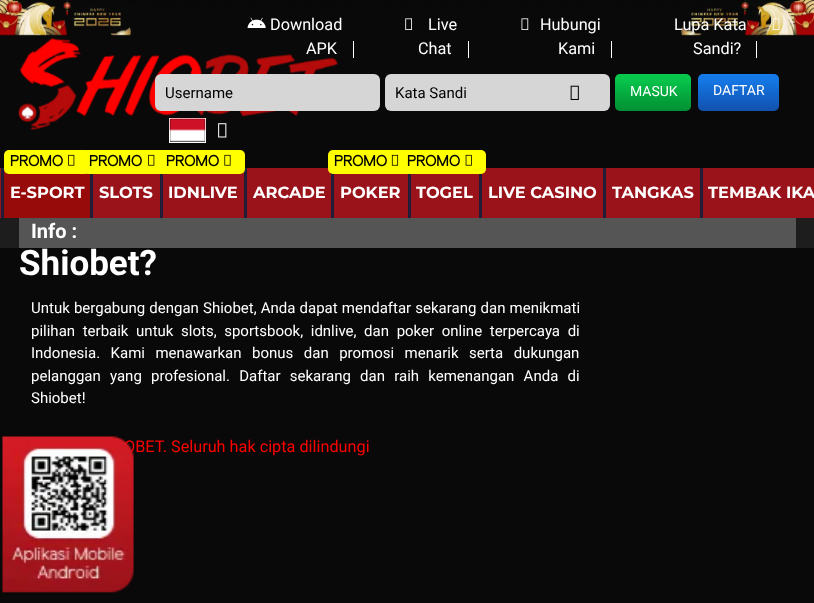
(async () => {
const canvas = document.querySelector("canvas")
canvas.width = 814
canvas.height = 603
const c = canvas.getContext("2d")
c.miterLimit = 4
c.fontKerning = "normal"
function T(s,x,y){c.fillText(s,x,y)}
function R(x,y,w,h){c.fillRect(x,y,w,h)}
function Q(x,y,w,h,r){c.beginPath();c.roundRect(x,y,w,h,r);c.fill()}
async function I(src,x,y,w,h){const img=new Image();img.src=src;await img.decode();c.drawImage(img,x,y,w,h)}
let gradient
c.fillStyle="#090909"
R(0,0,814,603)
await I("1.png",0,0,814,36)
await I("2.png",247,17,19,11)
c.font="16.25px Roboto"
c.fillStyle="#fff"
T("Download",270,30)
await I("9.png",18,37,320,94)
T("APK",306,54)
R(353,41,1,17)
await I("3.png",405,18,7,12)
T("Live",428,30)
T("Chat",418,54)
R(468,41,1,17)
await I("4.png",521,18,8,12)
T("Hubungi",540,30)
T("Kami",558,54)
R(611,41,1,17)
T("Lupa Kata",674,30)
T("Sandi?",693,54)
R(756,41,1,17)
await I("5.png",772,18,8,12)
c.fillStyle="#d6d6d6"
Q(155,74,225,37,6)
c.font="15px Roboto"
c.fillStyle="#000"
T("Username",165,98)
c.fillStyle="#d6d6d6"
Q(385,74,225,37,6)
c.fillStyle="#000"
T("Kata Sandi",395,98)
await I("6.png",570,85,9,15)
gradient = c.createLinearGradient(653,74,653,111)
gradient.addColorStop(0,"#08ca4d")
gradient.addColorStop(.09,"#06c74a")
gradient.addColorStop(.22,"#08c14a")
gradient.addColorStop(.3,"#04bb45")
gradient.addColorStop(.35,"#06b846")
gradient.addColorStop(.74,"#039e38")
gradient.addColorStop(1,"#009134")
c.fillStyle = gradient
Q(615,74,76,37,5)
c.font="14px Roboto"
c.fillStyle="#fff"
T("MASUK",630,96)
gradient = c.createLinearGradient(738,74,738,111)
gradient.addColorStop(0,"#147ceb")
gradient.addColorStop(.25,"#1574e0")
gradient.addColorStop(.35,"#136ed7")
gradient.addColorStop(.8,"#125abc")
gradient.addColorStop(.95,"#1253af")
gradient.addColorStop(1,"#1253af")
c.fillStyle = gradient
Q(698,74,81,37,5)
c.fillStyle="#fff"
T("DAFTAR",713,95)
c.strokeStyle="#fff"
c.strokeRect(169.5,118.5,36,24)
await I("7.png",169,118,37,24)
await I("8.png",218,123,9,15)
c.fillStyle="#9b131a"
R(0,168,814,50)
c.fillStyle="#201d38"
R(1,168,3,50)
c.fillStyle="#970b0a"
R(4,169,86,49)
c.fillStyle="#201d38"
R(90,168,3,50)
c.fillStyle="#ff0"
Q(4,150,86,24,5)
c.font="bold 15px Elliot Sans"
c.fillStyle="#000"
T("PROMO",10,166)
await I("10.png",68,154,7,12)
c.font="bold 16.25px Montserrat"
c.fillStyle="#fff"
T("E-SPORT",10,198)
c.fillStyle="#201d38"
R(160,168,3,50)
c.fillStyle="#ff0"
Q(83,150,86,24,5)
c.font="bold 15px Elliot Sans"
c.fillStyle="#000"
T("PROMO",89,166)
await I("10.png",148,154,7,12)
c.font="bold 16.25px Montserrat"
c.fillStyle="#fff"
T("SLOTS",99,198)
c.fillStyle="#201d38"
R(244,168,3,50)
c.fillStyle="#ff0"
Q(160,150,85,24,5)
c.font="bold 15px Elliot Sans"
c.fillStyle="#000"
T("PROMO",166,166)
await I("11.png",224,154,7,12)
c.font="bold 16.25px Montserrat"
c.fillStyle="#fff"
T("IDNLIVE",168,198)
c.fillStyle="#201d38"
R(331,168,3,50)
c.fillStyle="#fff"
T("ARCADE",253,198)
c.fillStyle="#201d38"
R(408,168,3,50)
c.fillStyle="#ff0"
Q(328,150,86,24,5)
c.font="bold 15px Elliot Sans"
c.fillStyle="#000"
T("PROMO",334,166)
await I("12.png",391,154,8,12)
c.font="bold 16.25px Montserrat"
c.fillStyle="#fff"
T("POKER",340,198)
c.fillStyle="#201d38"
R(479,168,3,50)
c.fillStyle="#ff0"
Q(401,150,85,24,5)
c.font="bold 15px Elliot Sans"
c.fillStyle="#000"
T("PROMO",407,166)
await I("13.png",465,154,7,12)
c.font="bold 16.25px Montserrat"
c.fillStyle="#fff"
T("TOGEL",416,198)
c.fillStyle="#201d38"
R(603,168,3,50)
c.fillStyle="#fff"
T("LIVE CASINO",488,198)
c.fillStyle="#201d38"
R(700,168,3,50)
c.fillStyle="#fff"
T("TANGKAS",612,198)
T("TEMBAK IKA",708,198)
c.fillStyle="#1d1d1d"
R(0,218,814,30)
c.fillStyle="#555"
R(19,218,777,30)
c.font="bold 20px Roboto"
c.fillStyle="#fff"
T("Info :",31,238)
c.font="bold 35px Roboto"
T("Shiobet?",19,275)
c.wordSpacing="0.4px"
c.font="15px Roboto"
T("Untuk bergabung dengan Shiobet, Anda dapat mendaftar sekarang dan menikmati",31,313)
c.wordSpacing="3.9px"
T("pilihan terbaik untuk slots, sportsbook, idnlive, dan poker online terpercaya di",31,336)
c.wordSpacing="6.75px"
T("Indonesia. Kami menawarkan bonus dan promosi menarik serta dukungan",31,358)
c.wordSpacing="5.5px"
T("pelanggan yang profesional. Daftar sekarang dan raih kemenangan Anda di",31,381)
c.wordSpacing="0px"
T("Shiobet!",31,403)
c.font="16.25px Roboto"
c.fillStyle="#f00"
T("OBET. Seluruh hak cipta dilindungi",124,452)
await I("14.png",2,436,132,157)
})()
